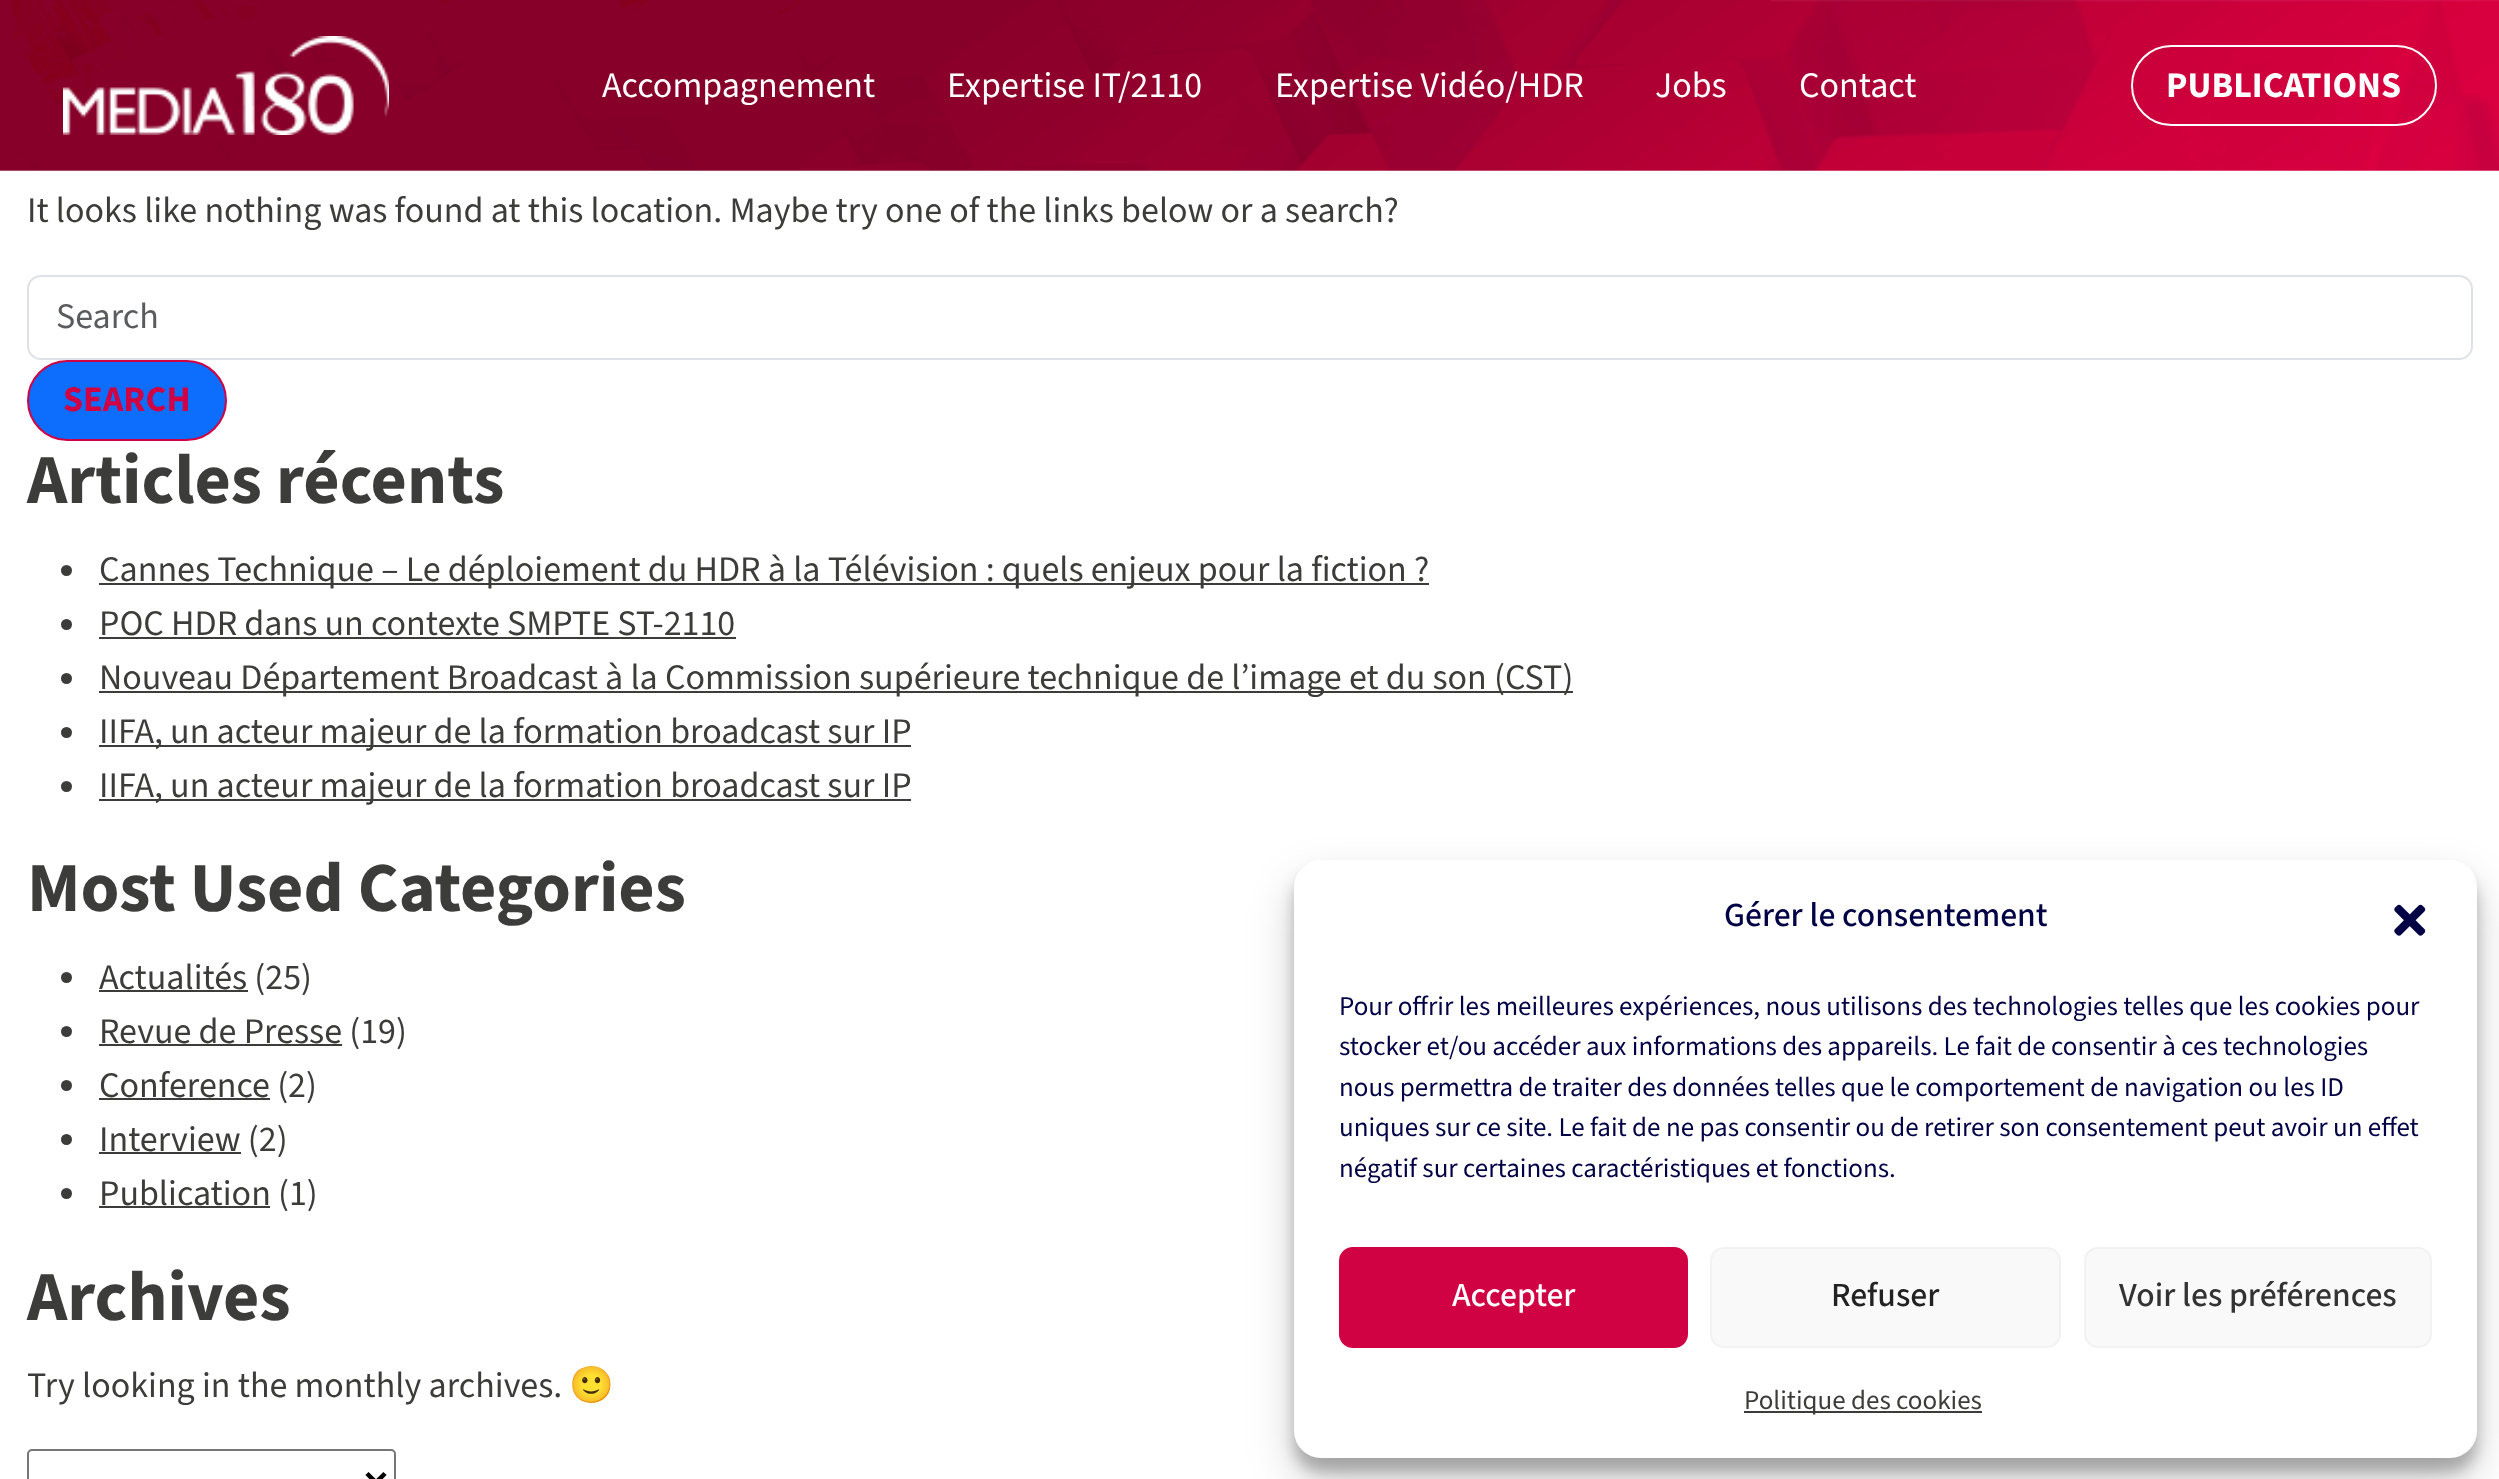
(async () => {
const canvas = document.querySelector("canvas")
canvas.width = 2499
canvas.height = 1479
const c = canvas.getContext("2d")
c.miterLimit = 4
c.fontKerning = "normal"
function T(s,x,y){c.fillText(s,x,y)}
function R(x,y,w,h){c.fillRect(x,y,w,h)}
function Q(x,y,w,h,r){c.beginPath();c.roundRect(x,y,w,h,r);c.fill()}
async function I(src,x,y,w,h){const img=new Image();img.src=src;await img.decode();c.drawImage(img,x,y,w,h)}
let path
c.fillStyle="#fff"
R(0,0,2499,1479)
await I("1.png",0,0,2499,171)
await I("2.png",63,36,326,99)
c.font="36px 'Source Sans 3'"
T("Accompagnement",602,97)
T("Expertise IT/2110",947,97)
T("Expertise Vidéo/HDR",1275,97)
T("Jobs",1655,97)
T("Contact",1799,97)
c.beginPath()
c.roundRect(2132,46,304,79,39.5)
c.strokeStyle="#fff"
c.lineWidth=2
c.stroke()
c.font="bold 36px 'Source Sans 3'"
T("PUBLICATIONS",2166,97)
c.font="36px 'Source Sans 3'"
c.fillStyle="#3c3c3b"
T("It looks like nothing was found at this location. Maybe try one of the links below or a search?",27,222)
c.beginPath()
c.roundRect(28,276,2444,83,13)
c.strokeStyle="#dee2e6"
c.stroke()
c.fillStyle="#595c5f"
T("Search",56,328)
c.fillStyle="#0d6efd"
c.beginPath()
c.roundRect(28,361,198,79,39.5)
c.fill()
c.strokeStyle="#d00244"
c.stroke()
c.font="bold 36px 'Source Sans 3'"
c.fillStyle="#d00244"
T("SEARCH",63,411)
c.font="bold 70.25px 'Source Sans 3'"
c.fillStyle="#3c3c3b"
T("Articles récents",27,503)
c.beginPath()
c.arc(66.5,570.5,5.5,0,7)
c.fill()
R(99,583,1330,2)
c.font="36px 'Source Sans 3'"
T("Cannes Technique – Le déploiement du HDR à la Télévision : quels enjeux pour la fiction ?",99,581)
c.beginPath()
c.arc(66.5,624.5,5.5,0,7)
c.fill()
T("POC HDR dans un contexte SMPTE ST-2110",99,635)
R(99,637,637,2)
c.beginPath()
c.arc(66.5,678.5,5.5,0,7)
c.fill()
R(99,691,1474,2)
T("Nouveau Département Broadcast à la Commission supérieure technique de l’image et du son (CST)",99,689)
c.beginPath()
c.arc(66.5,732.5,5.5,0,7)
c.fill()
R(99,745,812,2)
T("IIFA, un acteur majeur de la formation broadcast sur IP",99,743)
c.beginPath()
c.arc(66.5,786.5,5.5,0,7)
c.fill()
R(99,799,812,2)
T("IIFA, un acteur majeur de la formation broadcast sur IP",99,797)
c.font="bold 70.25px 'Source Sans 3'"
T("Most Used Categories",27,911)
c.beginPath()
c.arc(66.5,977.5,5.5,0,7)
c.fill()
R(99,990,149,2)
c.font="36px 'Source Sans 3'"
T("Actualités (25)",99,989)
c.beginPath()
c.arc(66.5,1031.5,5.5,0,7)
c.fill()
R(99,1044,243,2)
T("Revue de Presse (19)",99,1043)
c.beginPath()
c.arc(66.5,1085.5,5.5,0,7)
c.fill()
R(99,1098,171,2)
T("Conference (2)",99,1097)
c.beginPath()
c.arc(66.5,1139.5,5.5,0,7)
c.fill()
R(99,1152,142,2)
T("Interview (2)",99,1151)
c.beginPath()
c.arc(66.5,1193.5,5.5,0,7)
c.fill()
R(99,1206,171,2)
T("Publication (1)",99,1205)
c.font="bold 70.25px 'Source Sans 3'"
T("Archives",27,1320)
c.font="36px 'Source Sans 3'"
T("Try looking in the monthly archives.",27,1397)
c.font="36px Noto Color Emoji"
T("🙂",569,1397)
c.beginPath()
c.roundRect(28,1450,367,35,4)
c.strokeStyle="#767676"
c.stroke()
path = new Path2D("M367 1473.5l9 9l9-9")
c.strokeStyle="#000"
c.lineWidth=4.5
c.stroke(path)
c.fillStyle="#0000003b"
c.filter="blur(7px)"
c.beginPath()
c.roundRect(1294,873,1183,599,27)
c.fill()
c.filter="none"
c.fillStyle="#00000030"
c.filter="blur(22.5px)"
c.beginPath()
c.roundRect(1294,882,1183,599,27)
c.fill()
c.filter="none"
c.fillStyle="#fff"
Q(1294,860,1183,598,27)
c.font="500 33.75px 'Source Sans 3'"
c.fillStyle="#010145"
T("Gérer le consentement",1724,926)
await I("3.png",2394,904,32,32)
c.font="27px 'Source Sans 3'"
T("Pour offrir les meilleures expériences, nous utilisons des technologies telles que les cookies pour",1339,1015)
T("stocker et/ou accéder aux informations des appareils. Le fait de consentir à ces technologies",1339,1055)
T("nous permettra de traiter des données telles que le comportement de navigation ou les ID",1339,1096)
T("uniques sur ce site. Le fait de ne pas consentir ou de retirer son consentement peut avoir un effet",1339,1136)
T("négatif sur certaines caractéristiques et fonctions.",1339,1177)
c.fillStyle="#d00244"
c.beginPath()
c.roundRect(1340,1248,347,99,13)
c.fill()
c.strokeStyle="#d00244"
c.lineWidth=2
c.stroke()
c.font="500 33.75px 'Source Sans 3'"
c.fillStyle="#fff"
T("Accepter",1452,1306)
c.fillStyle="#f9f9f9"
c.beginPath()
c.roundRect(1711,1248,349,99,13)
c.fill()
c.strokeStyle="#f2f2f2"
c.stroke()
c.fillStyle="#222"
T("Refuser",1831,1306)
c.fillStyle="#f9f9f9"
c.beginPath()
c.roundRect(2085,1248,346,99,13)
c.fill()
c.stroke()
c.fillStyle="#333"
T("Voir les préférences",2119,1306)
c.fillStyle="#3c3c3b"
R(1744,1411,238,2)
c.font="27px 'Source Sans 3'"
T("Politique des cookies",1744,1409)
})()
